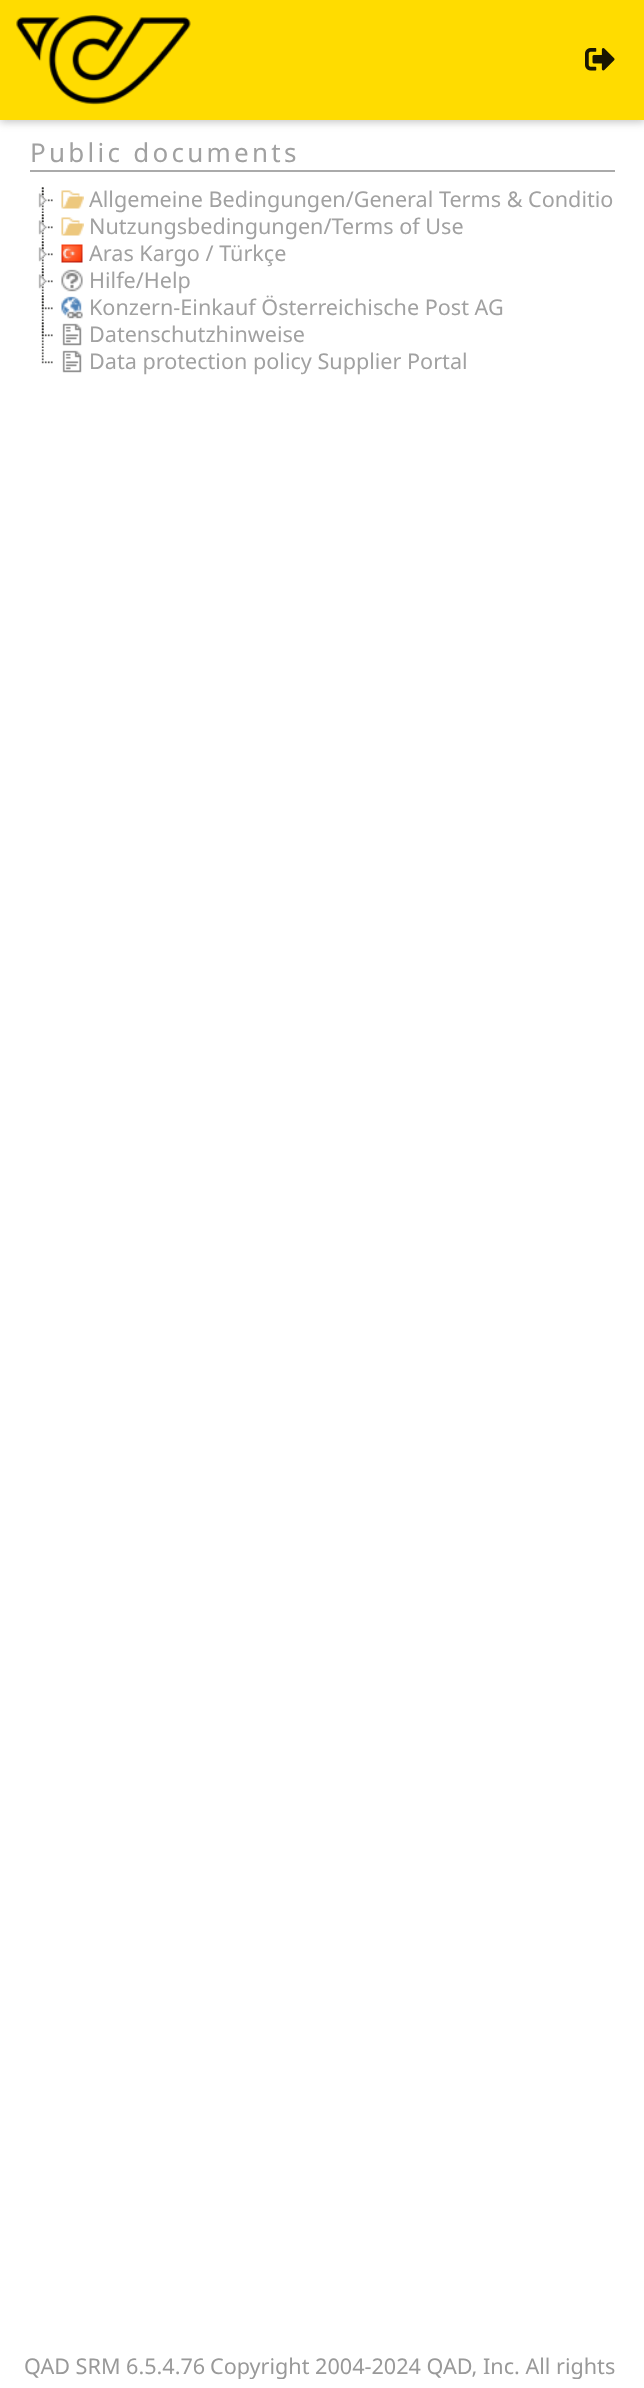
(async () => {
const canvas = document.querySelector("canvas")
canvas.width = 644
canvas.height = 2388
const c = canvas.getContext("2d")
c.miterLimit = 4
c.fontKerning = "normal"
function T(s,x,y){c.fillText(s,x,y)}
function R(x,y,w,h){c.fillRect(x,y,w,h)}
async function I(src,x,y,w,h){const img=new Image();img.src=src;await img.decode();c.drawImage(img,x,y,w,h)}
c.fillStyle="#fff"
R(0,0,644,2388)
c.fillStyle="#88888880"
c.filter="blur(4px)"
c.beginPath()
c.rect(0,2,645,120)
c.fill()
c.filter="none"
c.fillStyle="#ffdc00"
R(0,0,644,120)
await I("1.png",16,15,175,90)
await I("2.png",585,48,30,23)
c.fillStyle="#aaa"
R(30,170,585,2)
c.letterSpacing="3.25px"
c.font="26px Noto Sans"
c.fillStyle="#a1a1a1"
T("Public documents",30,162)
await I("3.png",41,187,3,26)
await I("4.png",38,187,15,21)
await I("5.png",61,190,23,19)
c.letterSpacing="0px"
c.font="21.6px Noto Sans"
T("Allgemeine Bedingungen/General Terms & Conditio",89,207)
await I("3.png",41,214,3,26)
await I("4.png",38,214,15,21)
await I("5.png",61,217,23,19)
T("Nutzungsbedingungen/Terms of Use",89,234)
await I("3.png",41,241,3,26)
await I("4.png",38,241,15,21)
await I("6.png",61,244,22,19)
T("Aras Kargo / Türkçe",89,261)
await I("3.png",41,268,3,26)
await I("4.png",38,268,15,21)
await I("7.png",61,269,22,23)
T("Hilfe/Help",89,288)
await I("3.png",41,295,3,26)
await I("8.png",41,295,12,15)
await I("9.png",61,296,22,23)
T("Konzern-Einkauf Österreichische Post AG",89,315)
await I("3.png",41,322,3,26)
await I("8.png",41,322,12,15)
await I("10.png",62,323,20,23)
T("Datenschutzhinweise",89,342)
await I("11.png",41,349,12,15)
await I("10.png",62,350,20,23)
T("Data protection policy Supplier Portal",89,369)
c.fillStyle="#999"
T("QAD SRM 6.5.4.76",24,2374)
c.save()
c.beginPath()
c.rect(9,2354,627,25)
c.clip()
T("Copyright 2004-2024 QAD, Inc. All rights",210,2374)
c.restore()
})()
